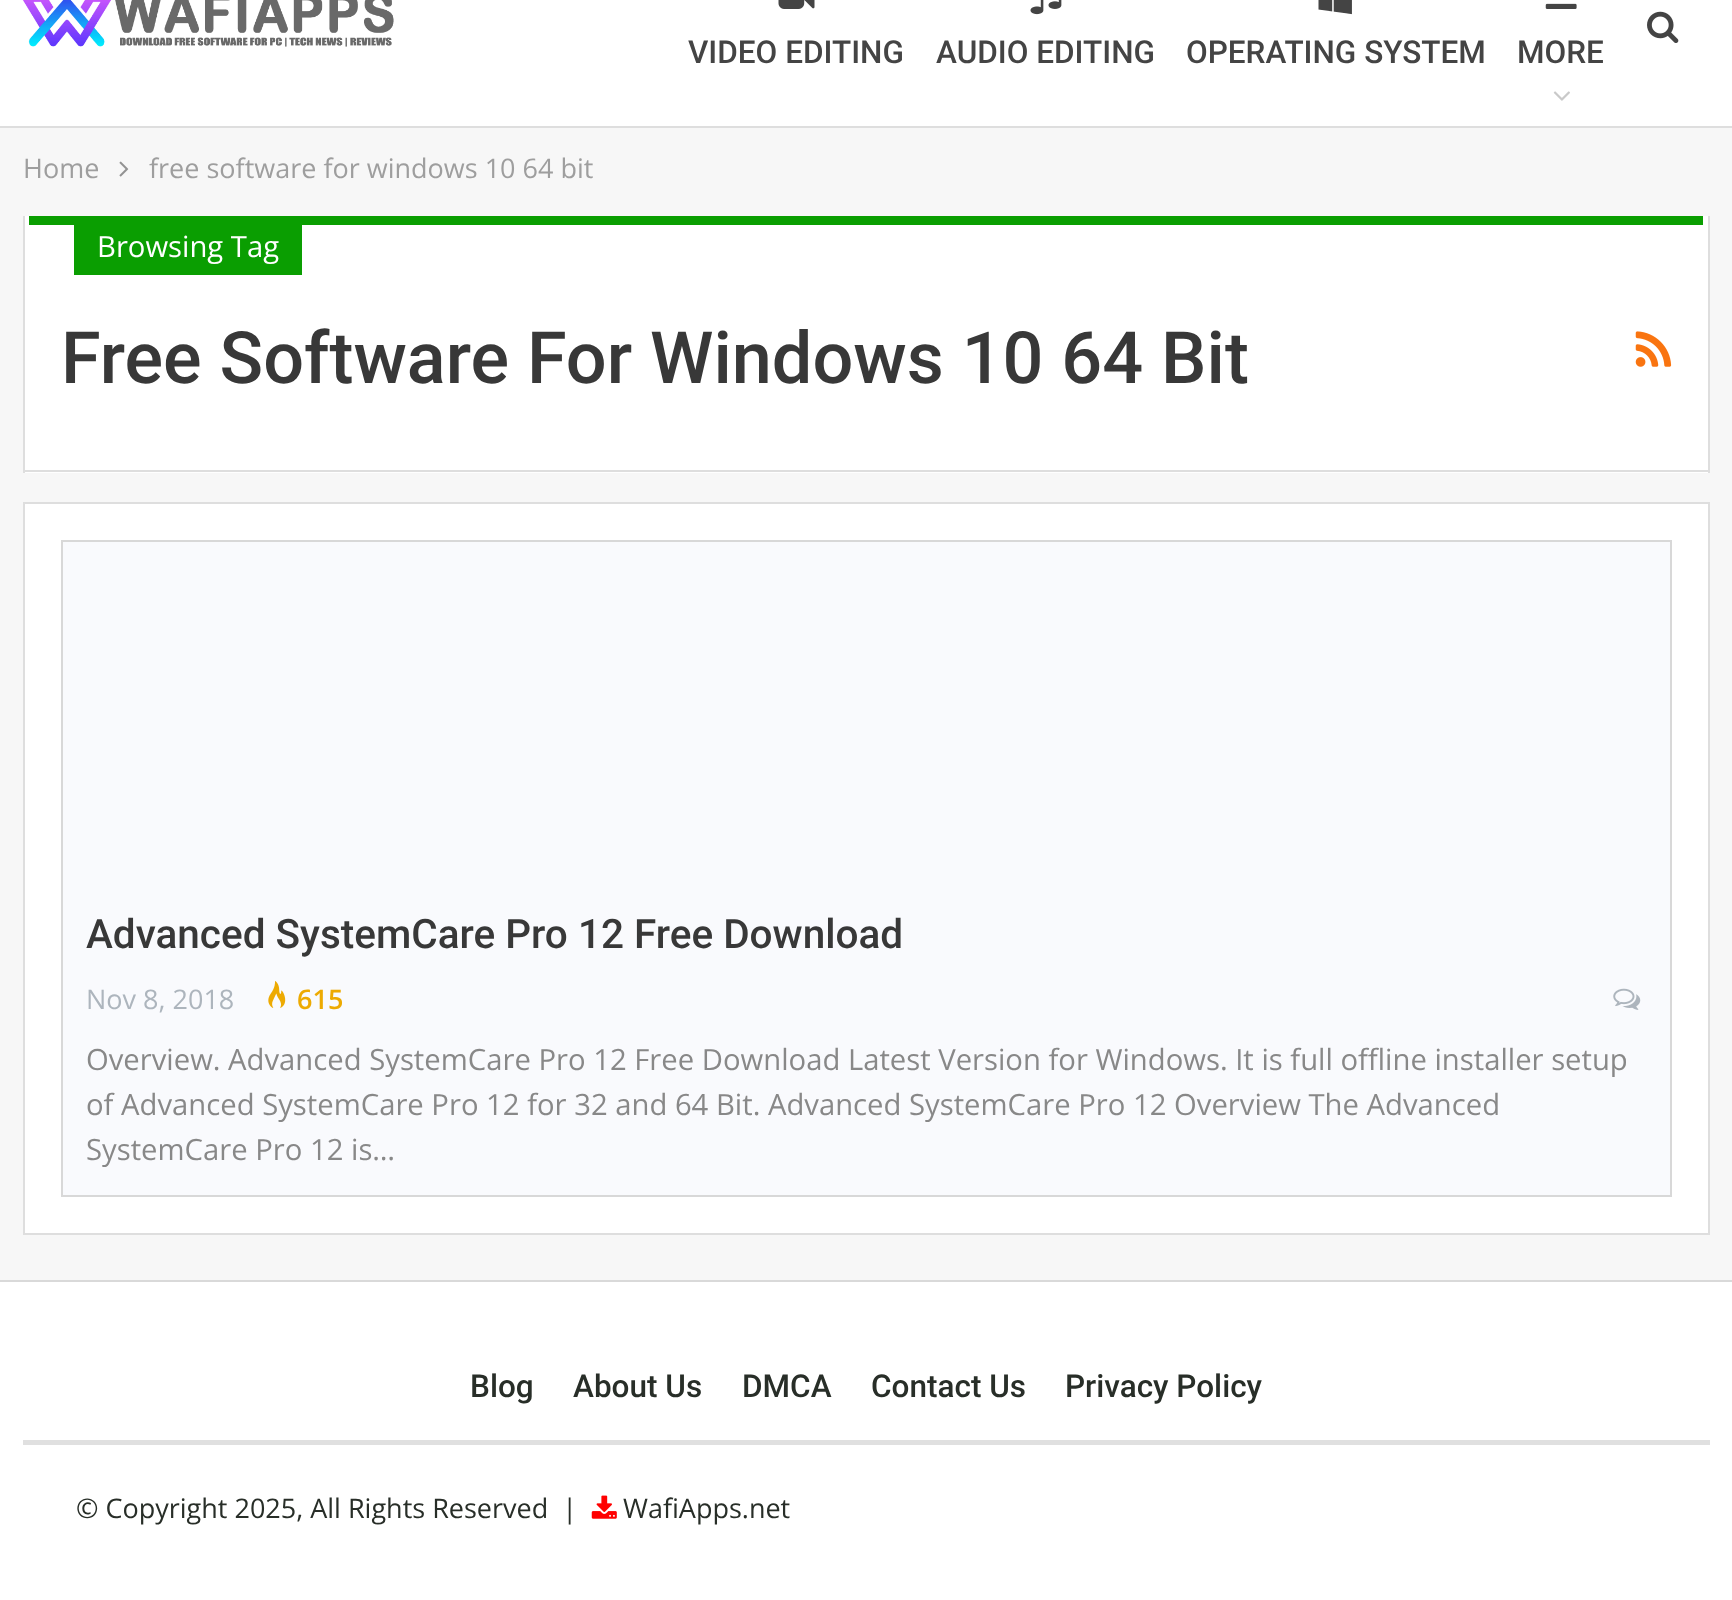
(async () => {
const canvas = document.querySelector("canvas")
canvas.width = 1732
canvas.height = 1600
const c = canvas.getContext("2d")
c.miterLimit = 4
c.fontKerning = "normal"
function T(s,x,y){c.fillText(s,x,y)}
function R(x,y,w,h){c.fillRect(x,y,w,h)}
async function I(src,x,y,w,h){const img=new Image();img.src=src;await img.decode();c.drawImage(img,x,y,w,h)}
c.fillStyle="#f7f7f7"
R(0,0,1732,1600)
c.fillStyle="#fff"
R(0,0,1732,126)
c.fillStyle="#dedede"
R(0,126,1732,2)
await I("1.png",22,0,372,47)
await I("2.png",1647,11,32,32)
await I("3.png",778,0,37,9)
c.font="500 31.5px Roboto"
c.fillStyle="#444"
T("VIDEO EDITING",688,63)
await I("4.png",1030,0,32,15)
T("AUDIO EDITING",936,63)
await I("5.png",1318,0,34,15)
T("OPERATING SYSTEM",1186,63)
await I("6.png",1545,3,32,6)
T("MORE",1517,63)
await I("7.png",1553,91,17,10)
c.font="27px Open Sans"
c.fillStyle="#9e9e9e"
T("Home",23,178)
await I("8.png",119,161,10,16)
T("free software for windows 10 64 bit",149,178)
c.fillStyle="#fff"
R(25,216,1683,257)
c.fillStyle="#dedede"
R(1708,216,2,257)
R(23,470,1687,2)
R(23,216,2,257)
c.fillStyle="#0a9e01"
R(29,216,1674,9)
R(74,225,228,50)
c.font="29.25px Open Sans"
c.fillStyle="#fff"
T("Browsing Tag",97,257)
c.font="500 72px Roboto"
c.fillStyle="#383838"
T("Free Software For Windows 10 64 Bit",61,383)
await I("9.png",1635,331,37,36)
c.fillStyle="#fff"
c.beginPath()
c.rect(24,503,1685,731)
c.fill()
c.strokeStyle="#dedede"
c.lineWidth=2
c.stroke()
c.fillStyle="#f9fafd"
c.beginPath()
c.rect(62,541,1609,655)
c.fill()
c.strokeStyle="#d8d8d8"
c.stroke()
c.font="500 40.5px Roboto"
c.fillStyle="#383838"
T("Advanced SystemCare Pro 12 Free Download",86,948)
c.font="27px Open Sans"
c.fillStyle="#adb5bd"
T("Nov 8, 2018",86,1009)
await I("10.png",268,981,18,27)
c.font="600 27px Open Sans"
c.fillStyle="#edaa02"
T("615",297,1009)
await I("11.png",1613,988,28,22)
c.font="29.25px Open Sans"
c.fillStyle="#888"
T("Overview. Advanced SystemCare Pro 12 Free Download Latest Version for Windows. It is full offline installer setup",86,1070)
T("of Advanced SystemCare Pro 12 for 32 and 64 Bit. Advanced SystemCare Pro 12 Overview The Advanced",86,1115)
T("SystemCare Pro 12 is…",86,1160)
c.fillStyle="#fff"
R(0,1282,1732,318)
c.fillStyle="#d9d9d9"
R(0,1280,1732,2)
c.fillStyle="#e0e0e0"
R(23,1440,1687,5)
c.font="500 31.5px Roboto"
c.fillStyle="#282e28"
T("Blog",470,1397)
T("About Us",573,1397)
T("DMCA",742,1397)
T("Contact Us",871,1397)
T("Privacy Policy",1065,1397)
c.font="27px Open Sans"
T("© Copyright 2025, All Rights Reserved  |",76,1518)
await I("12.png",591,1495,26,24)
T("WafiApps.net",623,1518)
})()
